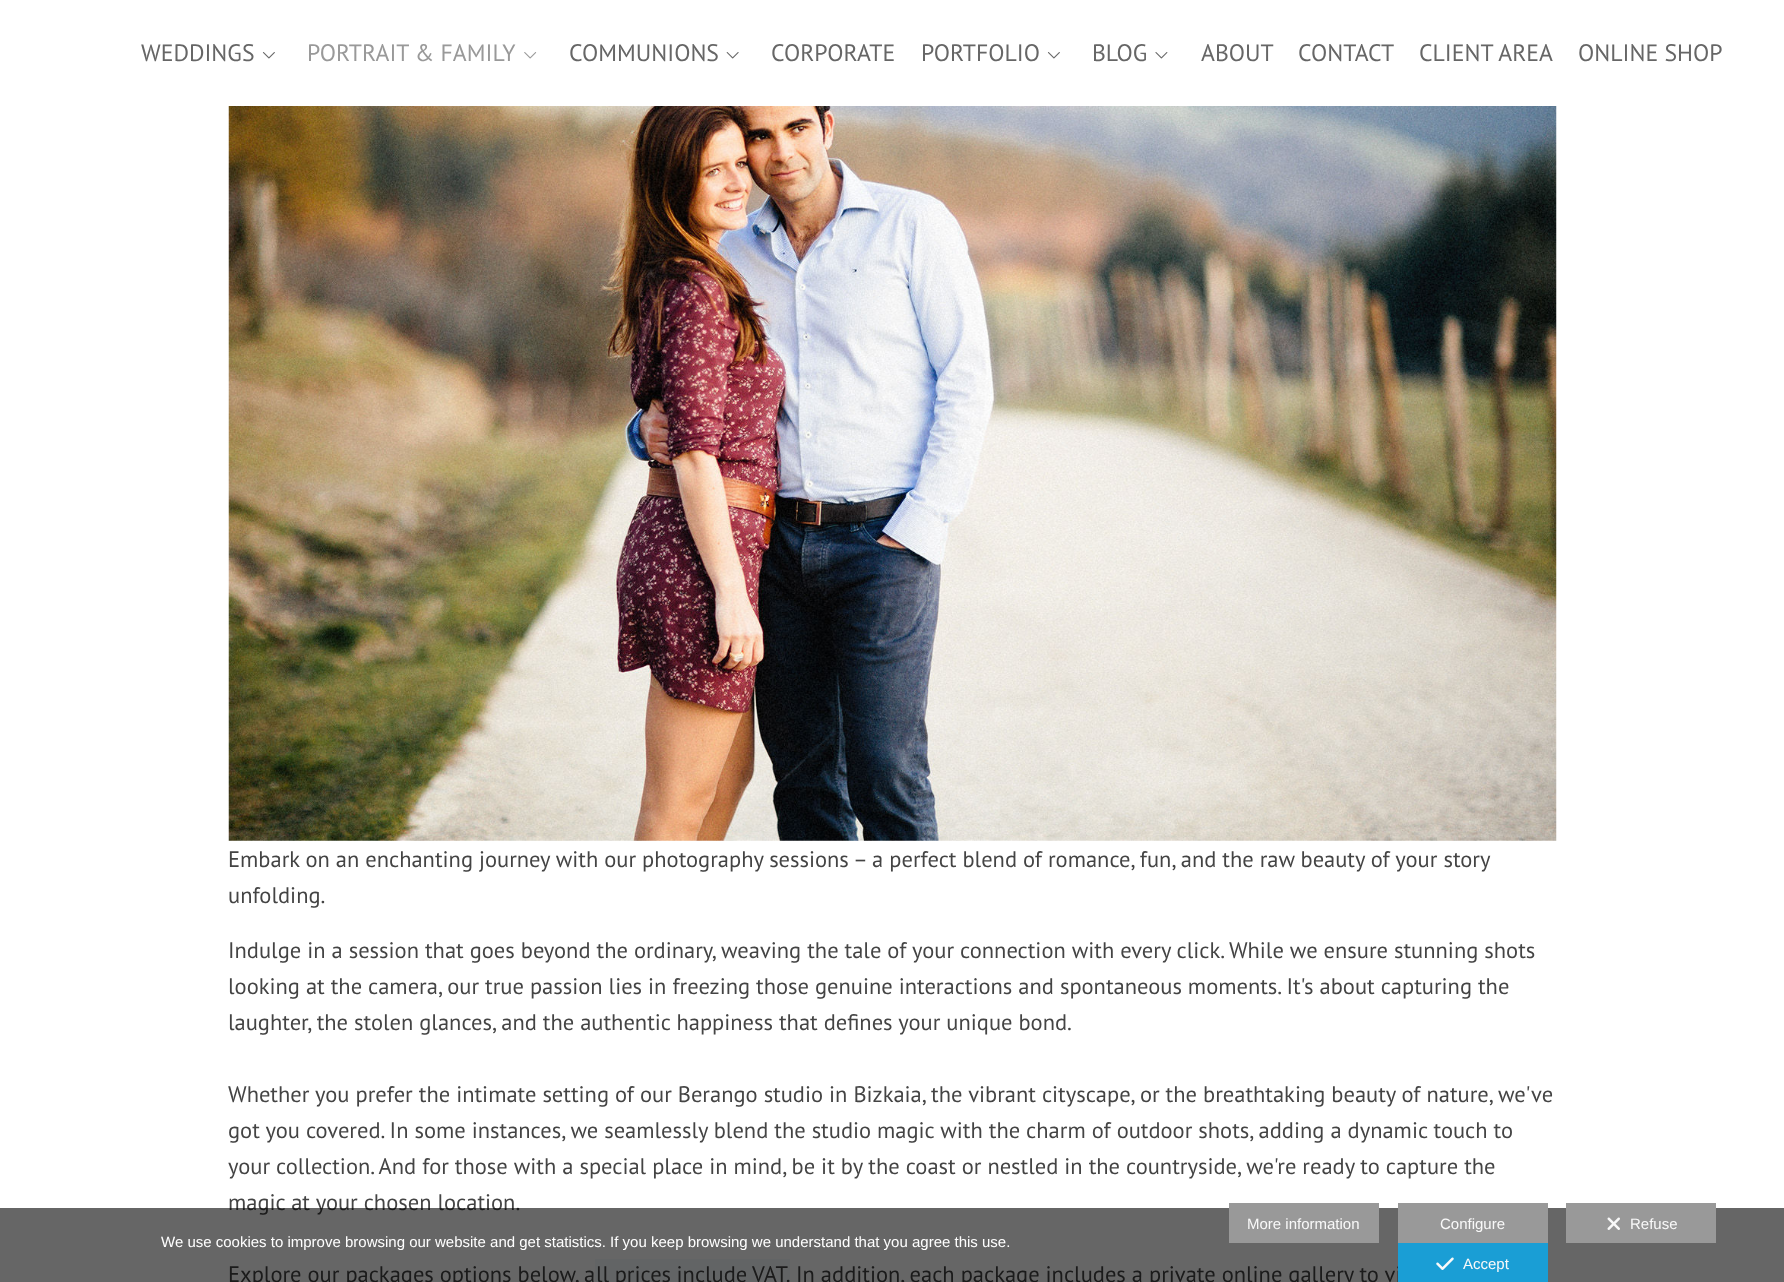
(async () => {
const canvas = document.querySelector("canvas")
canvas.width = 1784
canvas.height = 1282
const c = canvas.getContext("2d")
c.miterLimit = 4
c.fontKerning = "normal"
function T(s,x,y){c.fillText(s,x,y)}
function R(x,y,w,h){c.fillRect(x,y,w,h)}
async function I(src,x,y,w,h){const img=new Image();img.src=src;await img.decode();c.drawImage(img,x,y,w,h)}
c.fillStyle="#fff"
R(0,0,1784,1282)
c.font="23.75px PT Sans"
c.fillStyle="#666"
T("WEDDINGS",141,61)
await I("1.png",262,52,13,7)
c.fillStyle="#999"
T("PORTRAIT & FAMILY",307,61)
await I("2.png",524,52,13,7)
c.fillStyle="#666"
T("COMMUNIONS",569,61)
await I("3.png",726,52,13,7)
T("CORPORATE",771,61)
T("PORTFOLIO",921,61)
await I("1.png",1047,52,13,7)
T("BLOG",1092,61)
await I("4.png",1155,52,13,7)
T("ABOUT",1201,61)
T("CONTACT",1298,61)
T("CLIENT AREA",1419,61)
T("ONLINE SHOP",1578,61)
await I("5.png",228,106,1329,735)
c.font="22.5px PT Sans"
c.fillStyle="#444"
T("Embark on an enchanting journey with our photography sessions – a perfect blend of romance, fun, and the raw beauty of your story",228,867)
T("unfolding.",228,903)
T("Indulge in a session that goes beyond the ordinary, weaving the tale of your connection with every click. While we ensure stunning shots",228,958)
T("looking at the camera, our true passion lies in freezing those genuine interactions and spontaneous moments. It's about capturing the",228,994)
T("laughter, the stolen glances, and the authentic happiness that defines your unique bond.",228,1030)
T("Whether you prefer the intimate setting of our Berango studio in Bizkaia, the vibrant cityscape, or the breathtaking beauty of nature, we've",228,1102)
T("got you covered. In some instances, we seamlessly blend the studio magic with the charm of outdoor shots, adding a dynamic touch to",228,1138)
T("your collection. And for those with a special place in mind, be it by the coast or nestled in the countryside, we're ready to capture the",228,1174)
T("magic at your chosen location.",228,1210)
T("Explore our packages options below, a",228,1282)
c.fillStyle="#f6fbfd"
R(595,1259,195,23)
c.wordSpacing="-0.5px"
c.fillStyle="#444"
T("ll prices include VAT.",596,1282)
c.wordSpacing="0px"
T("In addition, each package includes a private online gallery to vi",796,1282)
c.fillStyle="#00000099"
R(0,1208,1784,74)
c.font="15px Liberation Sans"
c.fillStyle="#fff"
T("We use cookies to improve browsing our website and get statistics. If you keep browsing we understand that you agree this use.",161,1247)
c.fillStyle="#999"
R(1229,1203,150,40)
c.fillStyle="#f9f9f9"
T("More information",1247,1229)
c.fillStyle="#999"
R(1398,1203,150,40)
c.fillStyle="#f9f9f9"
T("Configure",1440,1229)
c.fillStyle="#999"
R(1566,1203,150,40)
await I("6.png",1607,1217,13,13)
c.fillStyle="#f9f9f9"
T("Refuse",1630,1229)
c.fillStyle="#1a9ed5"
R(1398,1243,150,39)
await I("7.png",1436,1257,18,13)
c.fillStyle="#f9f9f9"
T("Accept",1463,1269)
})()
